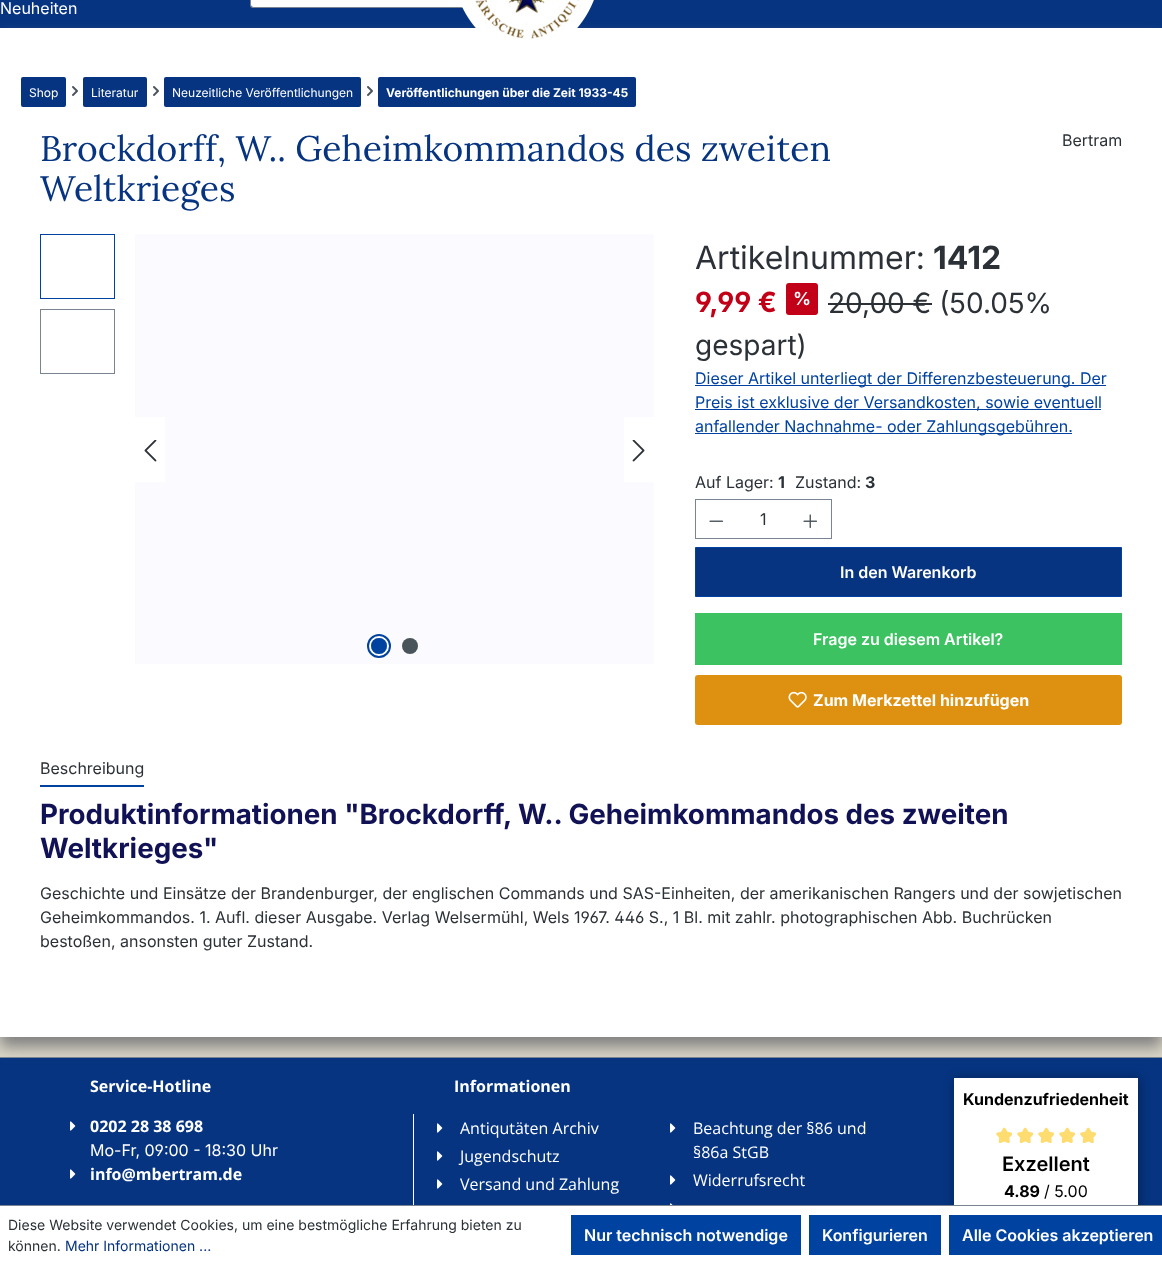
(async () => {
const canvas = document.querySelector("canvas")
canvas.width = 1162
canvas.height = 1264
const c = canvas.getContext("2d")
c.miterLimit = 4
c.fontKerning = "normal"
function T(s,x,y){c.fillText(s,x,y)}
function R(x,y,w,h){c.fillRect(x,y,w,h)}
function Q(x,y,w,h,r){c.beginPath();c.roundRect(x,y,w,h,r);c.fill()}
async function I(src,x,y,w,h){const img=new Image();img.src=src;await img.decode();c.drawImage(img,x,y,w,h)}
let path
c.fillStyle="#063480"
R(0,0,1162,1264)
c.fillStyle="#dcd7c8"
R(0,1037,1162,20)
c.fillStyle="#808080"
c.filter="blur(7.5px)"
c.beginPath()
c.rect(0,38,1162,1009)
c.fill()
c.filter="none"
c.font="16px Inter"
c.fillStyle="#fff"
T("Neuheiten",0,14)
path = new Path2D("M253-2h250v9h-250c-1 0-2-1-2-2v-5c0-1 1-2 2-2z")
c.fill(path)
c.fillStyle="#798490"
path = new Path2D("M253-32h250v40h-250c-2 0-3-1-3-3v-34c0-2 1-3 3-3zm0 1h250v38h-250c-1 0-2-1-2-2v-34c0-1 1-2 2-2z")
c.fill(path,"evenodd")
c.fillStyle="#fff"
R(0,28,1162,1009)
await I("1.png",462,0,132,42)
c.fillStyle="#063480"
Q(21,77,45,30,2)
c.font="12px Inter"
c.fillStyle="#fff"
T("Shop",29,97)
await I("2.png",72,86,6,10)
c.fillStyle="#063480"
Q(83,77,64,30,2)
c.fillStyle="#fff"
T("Literatur",91,97)
await I("2.png",153,86,6,10)
c.fillStyle="#063480"
Q(164,77,197,30,2)
c.fillStyle="#fff"
T("Neuzeitliche Veröffentlichungen",172,97)
await I("2.png",367,86,6,10)
c.fillStyle="#063480"
Q(378,77,258,30,2)
c.font="bold 12px Inter"
c.fillStyle="#fff"
T("Veröffentlichungen über die Zeit 1933-45",386,97)
c.font="35.5px Lora"
c.fillStyle="#063480"
T("Brockdorff, W.. Geheimkommandos des zweiten",40,161)
T("Weltkrieges",40,201)
c.font="16px Inter"
c.fillStyle="#2b3136"
T("Bertram",1062,146)
c.strokeStyle="#0042a0"
c.strokeRect(40.5,234.5,74,64)
c.strokeStyle="#798490"
c.strokeRect(40.5,309.5,74,64)
c.fillStyle="#fafaff"
R(135,234,519,430)
c.fillStyle="#fff"
R(135,417,30,65)
await I("3.png",144,440,13,22)
R(624,417,30,65)
await I("4.png",632,440,13,22)
c.beginPath()
c.arc(379,646,10,0,7)
c.strokeStyle="#0042a0"
c.lineWidth=4
c.stroke()
c.beginPath()
c.arc(379,646,9,0,7)
c.strokeStyle="#fff"
c.lineWidth=2
c.stroke()
c.fillStyle="#0042a0"
c.beginPath()
c.arc(379,646,8,0,7)
c.fill()
c.fillStyle="#4a545b"
c.beginPath()
c.arc(410,646,8,0,7)
c.fill()
c.font="32px Inter"
c.fillStyle="#2b3136"
T("Artikelnummer:",695,269)
c.font="bold 32px Inter"
T("1412",933,269)
c.font="bold 27.75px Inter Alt"
c.fillStyle="#c20017"
T("9,99 €",695,312)
Q(786,283,32,32,3)
c.font="600 18px Inter"
c.fillStyle="#fff"
T("%",793,305)
c.font="28px Inter"
c.fillStyle="#2b3136"
T("20,00 € (50.05%",828,313)
R(828,303,104,2)
T("gespart)",695,355)
c.fillStyle="#0042a0"
R(695,385,411,1)
c.font="16px Inter"
T("Dieser Artikel unterliegt der Differenzbesteuerung. Der",695,384)
R(695,409,406,1)
T("Preis ist exklusive der Versandkosten, sowie eventuell",695,408)
R(695,433,377,1)
T("anfallender Nachnahme- oder Zahlungsgebühren.",695,432)
c.fillStyle="#2b3136"
T("Auf Lager:",695,488)
c.font="bold 16px Inter"
T("1",778,488)
c.font="16px Inter"
T("Zustand:",795,488)
c.font="bold 16px Inter"
T("3",865,488)
c.fillStyle="#798490"
R(695,499,137,1)
R(695,538,96,1)
R(695,499,1,40)
await I("5.png",709,520,15,2)
c.font="16px Inter"
c.fillStyle="#2b3136"
T("1",760,525)
c.fillStyle="#798490"
R(831,499,1,40)
R(790,538,42,1)
await I("6.png",803,514,15,15)
c.fillStyle="#063480"
c.beginPath()
c.rect(695.5,547.5,426,49)
c.fill()
c.strokeStyle="#0042a0"
c.lineWidth=1
c.stroke()
c.font="600 16px Inter"
c.fillStyle="#fff"
T("In den Warenkorb",840,578)
c.fillStyle="#3cc261"
R(695,613,427,52)
c.fillStyle="#fff"
T("Frage zu diesem Artikel?",813,645)
c.fillStyle="#de9111"
Q(695,675,427,50,3)
await I("7.png",788,691,19,17)
c.font="bold 16px Inter"
c.fillStyle="#fff"
T("Zum Merkzettel hinzufügen",813,706)
c.fillStyle="#0042a0"
R(40,785,104,2)
c.font="16px Inter"
c.fillStyle="#2b3136"
T("Beschreibung",40,774)
c.font="bold 27.75px Inter"
c.fillStyle="#115"
T("Produktinformationen \"Brockdorff, W.. Geheimkommandos des zweiten",40,824)
T("Weltkrieges\"",40,858)
c.font="16px Inter"
c.fillStyle="#2b3136"
T("Geschichte und Einsätze der Brandenburger, der englischen Commands und SAS-Einheiten, der amerikanischen Rangers und der sowjetischen",40,899)
c.font="16px Inter Alt"
T("Geheimkommandos. 1. Aufl. dieser Ausgabe. Verlag Welsermühl, Wels 1967. 446 S., 1 Bl. mit zahlr. photographischen Abb. Buchrücken",40,923)
c.font="16px Inter"
T("bestoßen, ansonsten guter Zustand.",40,947)
c.fillStyle="#063480"
R(0,1058,1162,4)
c.fillStyle="#798490"
R(0,1057,1162,1)
c.font="bold 16px Open Sans"
c.fillStyle="#fff"
T("Service-Hotline",90,1092)
R(413,1114,1,91)
await I("8.png",70,1121,6,10)
T("0202 28 38 698",90,1132)
c.font="16px Inter Alt"
T("Mo-Fr, 09:00 - 18:30 Uhr",90,1156)
await I("8.png",70,1169,6,10)
c.font="bold 16px Open Sans"
T("info@mbertram.de",90,1180)
T("Informationen",454,1092)
await I("8.png",437,1123,6,10)
c.font="16px Open Sans"
T("Antiqutäten Archiv",460,1134)
await I("8.png",670,1123,6,10)
T("Beachtung der §86 und",693,1134)
T("§86a StGB",693,1158)
await I("8.png",437,1151,6,10)
T("Jugendschutz",460,1162)
await I("8.png",437,1179,6,10)
T("Versand und Zahlung",460,1190)
await I("8.png",670,1175,6,10)
T("Widerrufsrecht",693,1186)
await I("9.png",670,1203,3,2)
c.fillStyle="#00000057"
c.filter="blur(5.5px)"
c.beginPath()
c.rect(955,1079,184,162)
c.fill()
c.filter="none"
c.fillStyle="#fff"
R(954,1078,184,127)
c.font="bold 16px Inter"
c.fillStyle="#000"
T("Kundenzufriedenheit",963,1105)
await I("10.png",996,1127,16,16)
await I("10.png",1017,1127,16,16)
await I("10.png",1038,1127,16,16)
await I("10.png",1059,1127,16,16)
await I("12.png",1080,1128,16,15)
await I("11.png",1080,1127,16,16)
c.font="600 20px Inter"
T("Exzellent",1002,1171)
c.font="bold 16px Inter"
T("4.89",1004,1197)
c.font="16px Inter"
T("/ 5.00",1044,1197)
c.fillStyle="#fff"
R(0,1206,1162,58)
c.fillStyle="#798490"
R(0,1205,1162,1)
c.font="14px Inter"
c.fillStyle="#2b3136"
T("Diese Website verwendet Cookies, um eine bestmögliche Erfahrung bieten zu",8,1230)
T("können.",8,1251)
c.fillStyle="#063480"
T("Mehr Informationen ...",65,1251)
c.fillStyle="#0042a0"
R(571,1215,230,40)
c.font="600 16px Inter"
c.fillStyle="#fff"
T("Nur technisch notwendige",584,1241)
c.fillStyle="#0042a0"
R(809,1215,132,40)
c.fillStyle="#fff"
T("Konfigurieren",822,1241)
c.fillStyle="#0042a0"
R(949,1215,213,40)
c.fillStyle="#fff"
T("Alle Cookies akzeptieren",962,1241)
})()
